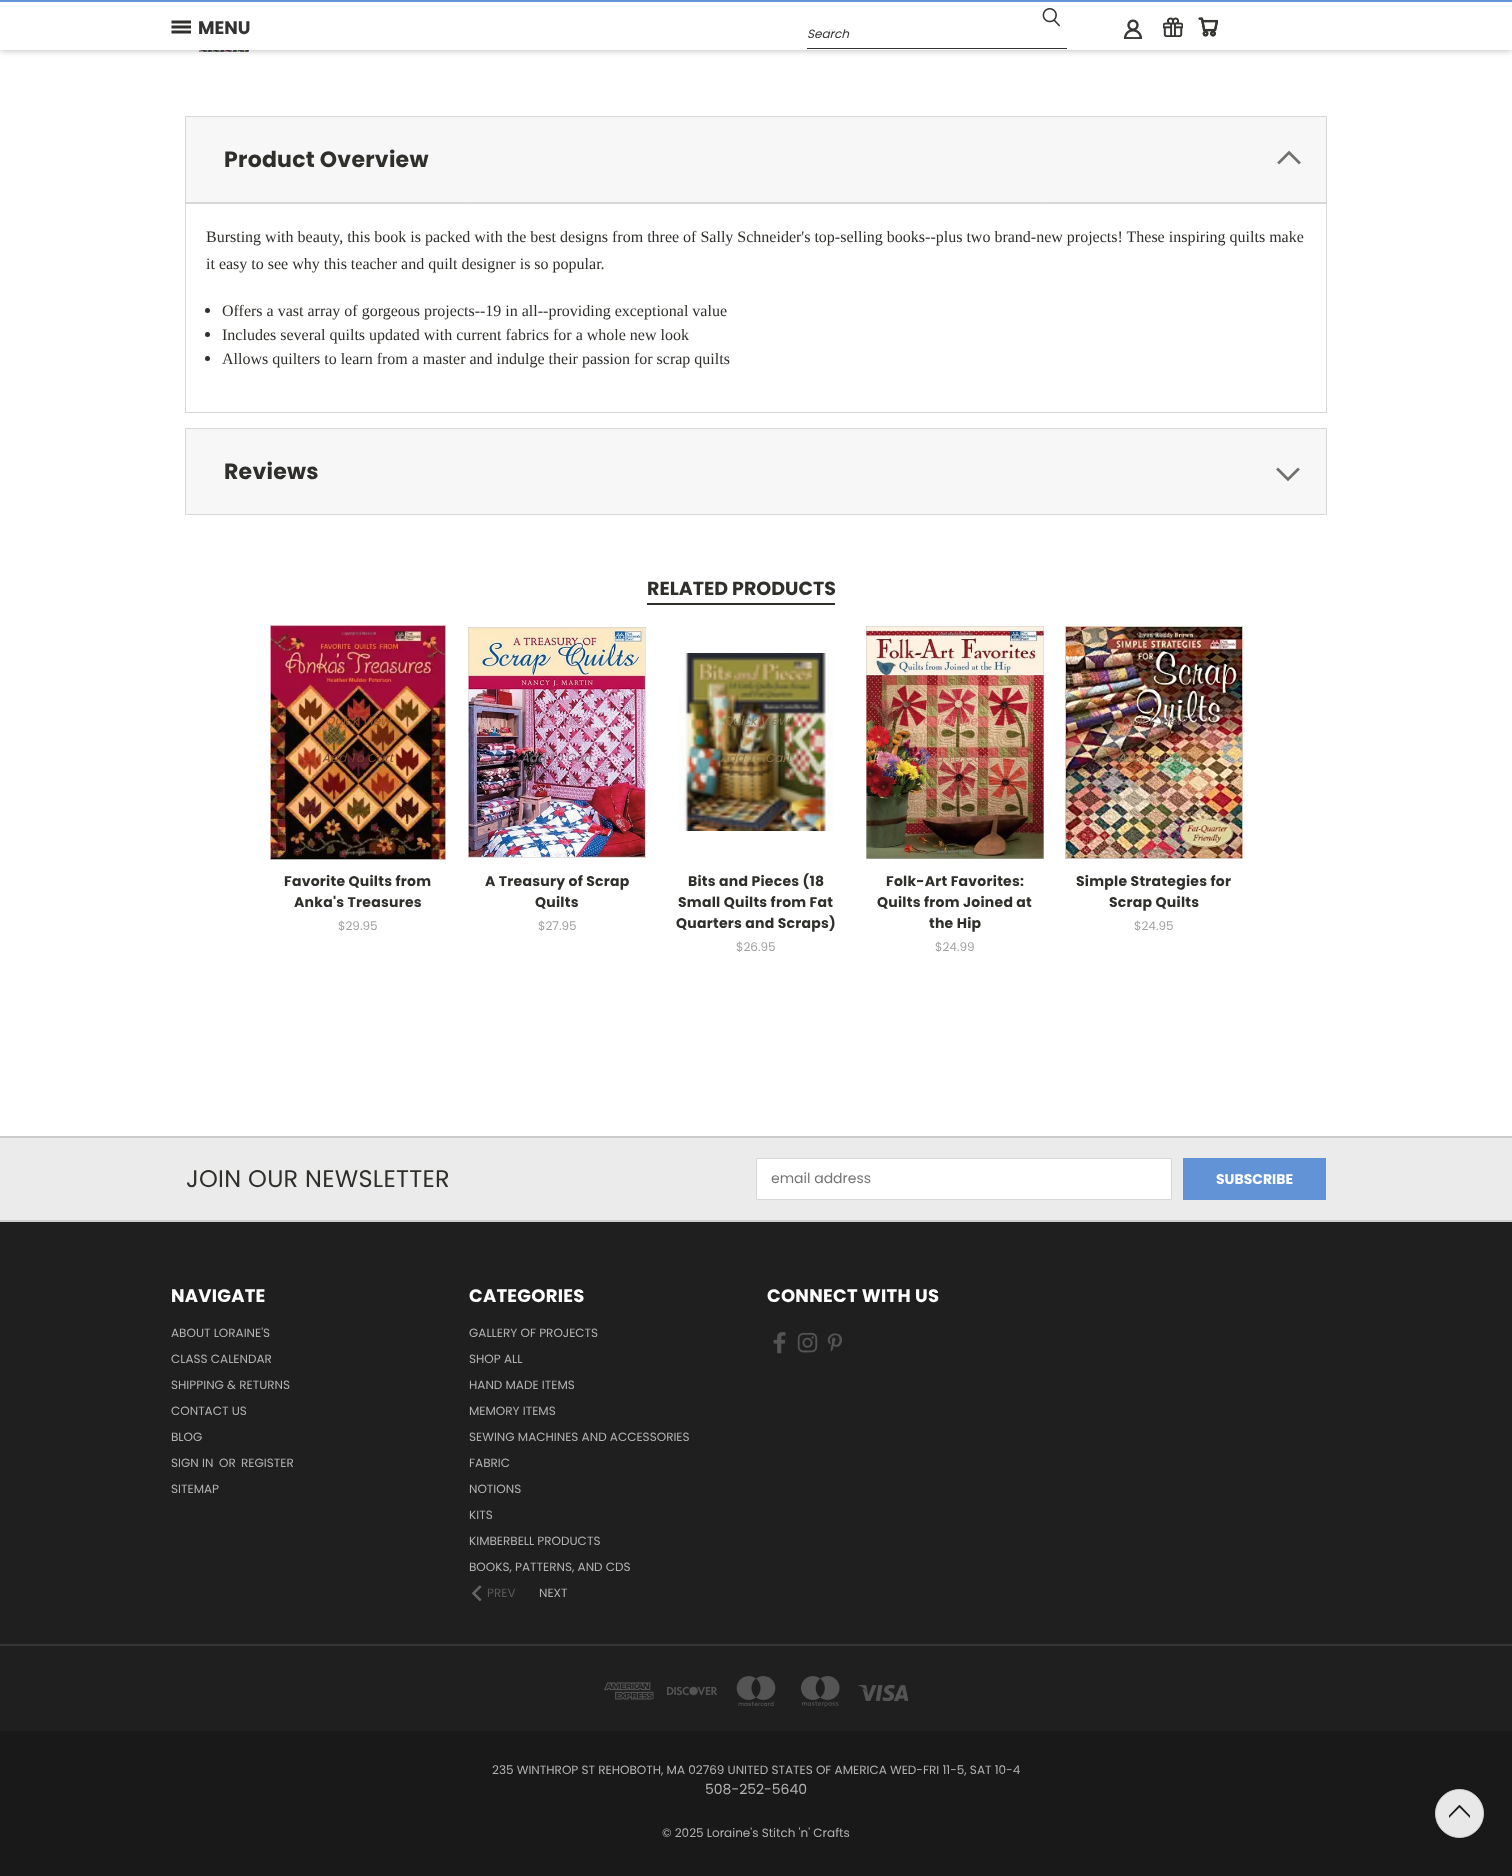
(async () => {
const canvas = document.querySelector("canvas")
canvas.width = 1512
canvas.height = 1876
const c = canvas.getContext("2d")
c.miterLimit = 4
c.fontKerning = "normal"
function T(s,x,y){c.fillText(s,x,y)}
function R(x,y,w,h){c.fillRect(x,y,w,h)}
async function I(src,x,y,w,h){const img=new Image();img.src=src;await img.decode();c.drawImage(img,x,y,w,h)}
let path
c.fillStyle="#fff"
R(0,0,1512,1876)
await I("6.png",199,50,50,2)
c.fillStyle="#0000004d"
c.filter="blur(3.5px)"
c.beginPath()
c.rect(0,0,1512,50)
c.fill()
c.filter="none"
c.fillStyle="#fff"
R(0,2,1512,48)
c.fillStyle="#6293d6"
R(0,0,1512,2)
await I("1.png",171,20,20,14)
c.font="bold 18px Poppins"
c.fillStyle="#333"
T("MENU",198,34)
await I("2.png",1042,8,18,19)
R(807,48,260,1)
c.font="italic 12px Poppins"
T("Search",807,38)
await I("3.png",1124,19,18,20)
await I("4.png",1163,17,20,20)
await I("5.png",1198,17,20,20)
c.fillStyle="#f7f7f7"
c.beginPath()
c.rect(185.5,116.5,1141,86)
c.fill()
c.strokeStyle="#d7d7d7"
c.stroke()
c.letterSpacing="0.25px"
c.font="bold 22px Poppins"
c.fillStyle="#2f2f2b"
T("Product Overview",224,167)
await I("7.png",1277,150,24,15)
c.strokeRect(185.5,203.5,1141,209)
c.letterSpacing="0px"
c.font="16px Liberation Serif"
T("Bursting with beauty, this book is packed with the best designs from three of Sally Schneider's top-selling books--plus two brand-new projects! These inspiring quilts make",206,242)
T("it easy to see why this teacher and quilt designer is so popular.",206,269)
c.beginPath()
c.arc(207.5,310.5,2.5,0,7)
c.fill()
T("Offers a vast array of gorgeous projects--19 in all--providing exceptional value",222,316)
c.beginPath()
c.arc(207.5,334.5,2.5,0,7)
c.fill()
T("Includes several quilts updated with current fabrics for a whole new look",222,340)
c.beginPath()
c.arc(207.5,358.5,2.5,0,7)
c.fill()
T("Allows quilters to learn from a master and indulge their passion for scrap quilts",222,364)
c.fillStyle="#f7f7f7"
c.beginPath()
c.rect(185.5,428.5,1141,86)
c.fill()
c.stroke()
c.letterSpacing="0.25px"
c.font="bold 22px Poppins"
c.fillStyle="#2f2f2b"
T("Reviews",224,479)
await I("8.png",1276,467,24,15)
R(647,603,188,2)
c.letterSpacing="0px"
c.font="bold 19px Poppins"
T("RELATED PRODUCTS",647,595)
await I("9.png",270,625,176,235)
c.font="italic 12px Poppins"
c.fillStyle="#915229"
T("Quick View",325,725)
c.fillStyle="#79482d"
T("Add To Cart",322,762)
c.letterSpacing="0.25px"
c.font="bold 14px Poppins"
c.fillStyle="#2f2f2b"
T("Favorite Quilts from",284,886)
T("Anka's Treasures",294,907)
c.letterSpacing="0px"
c.font="12px Poppins"
c.fillStyle="#a2a2a2"
T("$29.95",338,930)
await I("10.png",468,627,178,231)
c.font="italic 12px Poppins"
c.fillStyle="#c082a2"
T("Quick View",524,725)
c.fillStyle="#94758a"
T("Add To Cart",521,762)
c.letterSpacing="0.25px"
c.font="bold 14px Poppins"
c.fillStyle="#2f2f2b"
T("A Treasury of Scrap",485,886)
T("Quilts",535,907)
c.letterSpacing="0px"
c.font="12px Poppins"
c.fillStyle="#a2a2a2"
T("$27.95",538,930)
await I("11.png",678,653,156,178)
c.font="italic 12px Poppins"
c.fillStyle="#857a59"
T("Quick View",723,725)
c.fillStyle="#8c784a"
T("Add To Cart",720,762)
c.letterSpacing="0.25px"
c.font="bold 14px Poppins"
c.fillStyle="#2f2f2b"
T("Bits and Pieces (18",688,886)
T("Small Quilts from Fat",678,907)
T("Quarters and Scraps)",676,928)
c.letterSpacing="0px"
c.font="12px Poppins"
c.fillStyle="#a2a2a2"
T("$26.95",736,951)
await I("12.png",866,626,178,233)
c.font="italic 12px Poppins"
c.fillStyle="#d58274"
T("Quick View",922,725)
c.fillStyle="#b07065"
T("Add To Cart",919,762)
c.letterSpacing="0.25px"
c.font="bold 14px Poppins"
c.fillStyle="#2f2f2b"
T("Folk-Art Favorites:",886,886)
T("Quilts from Joined at",877,907)
T("the Hip",929,928)
c.letterSpacing="0px"
c.font="12px Poppins"
c.fillStyle="#a2a2a2"
T("$24.99",935,951)
await I("13.png",1065,626,178,233)
c.font="italic 12px Poppins"
c.fillStyle="#886c64"
T("Quick View",1121,725)
c.fillStyle="#977d5a"
T("Add To Cart",1118,762)
c.letterSpacing="0.25px"
c.font="bold 14px Poppins"
c.fillStyle="#2f2f2b"
T("Simple Strategies for",1076,886)
T("Scrap Quilts",1109,907)
c.letterSpacing="0px"
c.font="12px Poppins"
c.fillStyle="#a2a2a2"
T("$24.95",1134,930)
c.fillStyle="#ebebeb"
R(0,1138,1512,82)
c.fillStyle="#cdcccc"
R(0,1136,1512,2)
c.letterSpacing="0.25px"
c.font="24px Poppins"
c.fillStyle="#2f2f2b"
T("JOIN OUR NEWSLETTER",186,1187)
c.fillStyle="#fff"
c.beginPath()
c.rect(756.5,1158.5,415,41)
c.fill()
c.stroke()
c.letterSpacing="0px"
c.font="14px Poppins"
c.fillStyle="#757575"
T("email address",771,1183)
c.fillStyle="#6293d6"
R(1183,1158,143,42)
c.font="bold 14px Poppins"
c.fillStyle="#fff"
T("SUBSCRIBE",1216,1184)
c.fillStyle="#1f1f1f"
R(0,1222,1512,509)
c.fillStyle="#cdcccc"
R(0,1220,1512,2)
c.letterSpacing="0.25px"
c.font="bold 18px Poppins"
c.fillStyle="#fff"
T("NAVIGATE",171,1302)
c.letterSpacing="0px"
c.font="12px Poppins"
c.fillStyle="#b2b2b2"
T("ABOUT LORAINE'S",171,1337)
T("CLASS CALENDAR",171,1363)
T("SHIPPING & RETURNS",171,1389)
T("CONTACT US",171,1415)
T("BLOG",171,1441)
T("SIGN IN",171,1467)
T("OR",219,1467)
T("REGISTER",241,1467)
T("SITEMAP",171,1493)
c.letterSpacing="0.25px"
c.font="bold 18px Poppins"
c.fillStyle="#fff"
T("CATEGORIES",469,1302)
c.letterSpacing="0px"
c.font="12px Poppins"
c.fillStyle="#b2b2b2"
T("GALLERY OF PROJECTS",469,1337)
T("SHOP ALL",469,1363)
T("HAND MADE ITEMS",469,1389)
T("MEMORY ITEMS",469,1415)
T("SEWING MACHINES AND ACCESSORIES",469,1441)
T("FABRIC",469,1467)
T("NOTIONS",469,1493)
T("KITS",469,1519)
T("KIMBERBELL PRODUCTS",469,1545)
T("BOOKS, PATTERNS, AND CDS",469,1571)
await I("14.png",472,1585,10,16)
c.fillStyle="#5a5a5a"
T("PREV",487,1597)
c.fillStyle="#b2b2b2"
T("NEXT",539,1597)
c.letterSpacing="0.25px"
c.font="bold 18px Poppins"
c.fillStyle="#fff"
T("CONNECT WITH US",767,1302)
await I("15.png",773,1332,13,22)
await I("16.png",797,1332,21,21)
await I("17.png",827,1333,15,19)
c.fillStyle="#363636"
R(0,1644,1512,2)
await I("18.png",604,1682,50,18)
await I("19.png",667,1686,50,10)
await I("20.png",736,1676,40,30)
await I("21.png",801,1676,39,31)
await I("22.png",858,1684,50,18)
c.fillStyle="#191919"
R(0,1731,1512,145)
c.letterSpacing="0px"
c.font="12px Poppins"
c.fillStyle="#b2b2b2"
T("235 WINTHROP ST REHOBOTH, MA 02769 UNITED STATES OF AMERICA WED-FRI 11-5, SAT 10-4",492,1774)
c.font="14px Poppins"
T("508-252-5640",705,1794)
c.font="12px Poppins"
T("© 2025 Loraine's Stitch 'n' Crafts",662,1837)
c.fillStyle="#e8e8e8"
c.beginPath()
c.arc(1459.5,1813.5,24,0,7)
c.fill()
c.stroke()
c.save()
path = new Path2D("M1470 1804.5v21h-21v-21z")
c.clip(path)
path = new Path2D("M1477 1824l-17.5-18l-17.5 18")
c.strokeStyle="#1f1f1f"
c.lineWidth=1.8
c.lineCap="round"
c.lineJoin="round"
c.stroke(path)
c.restore()
})()
